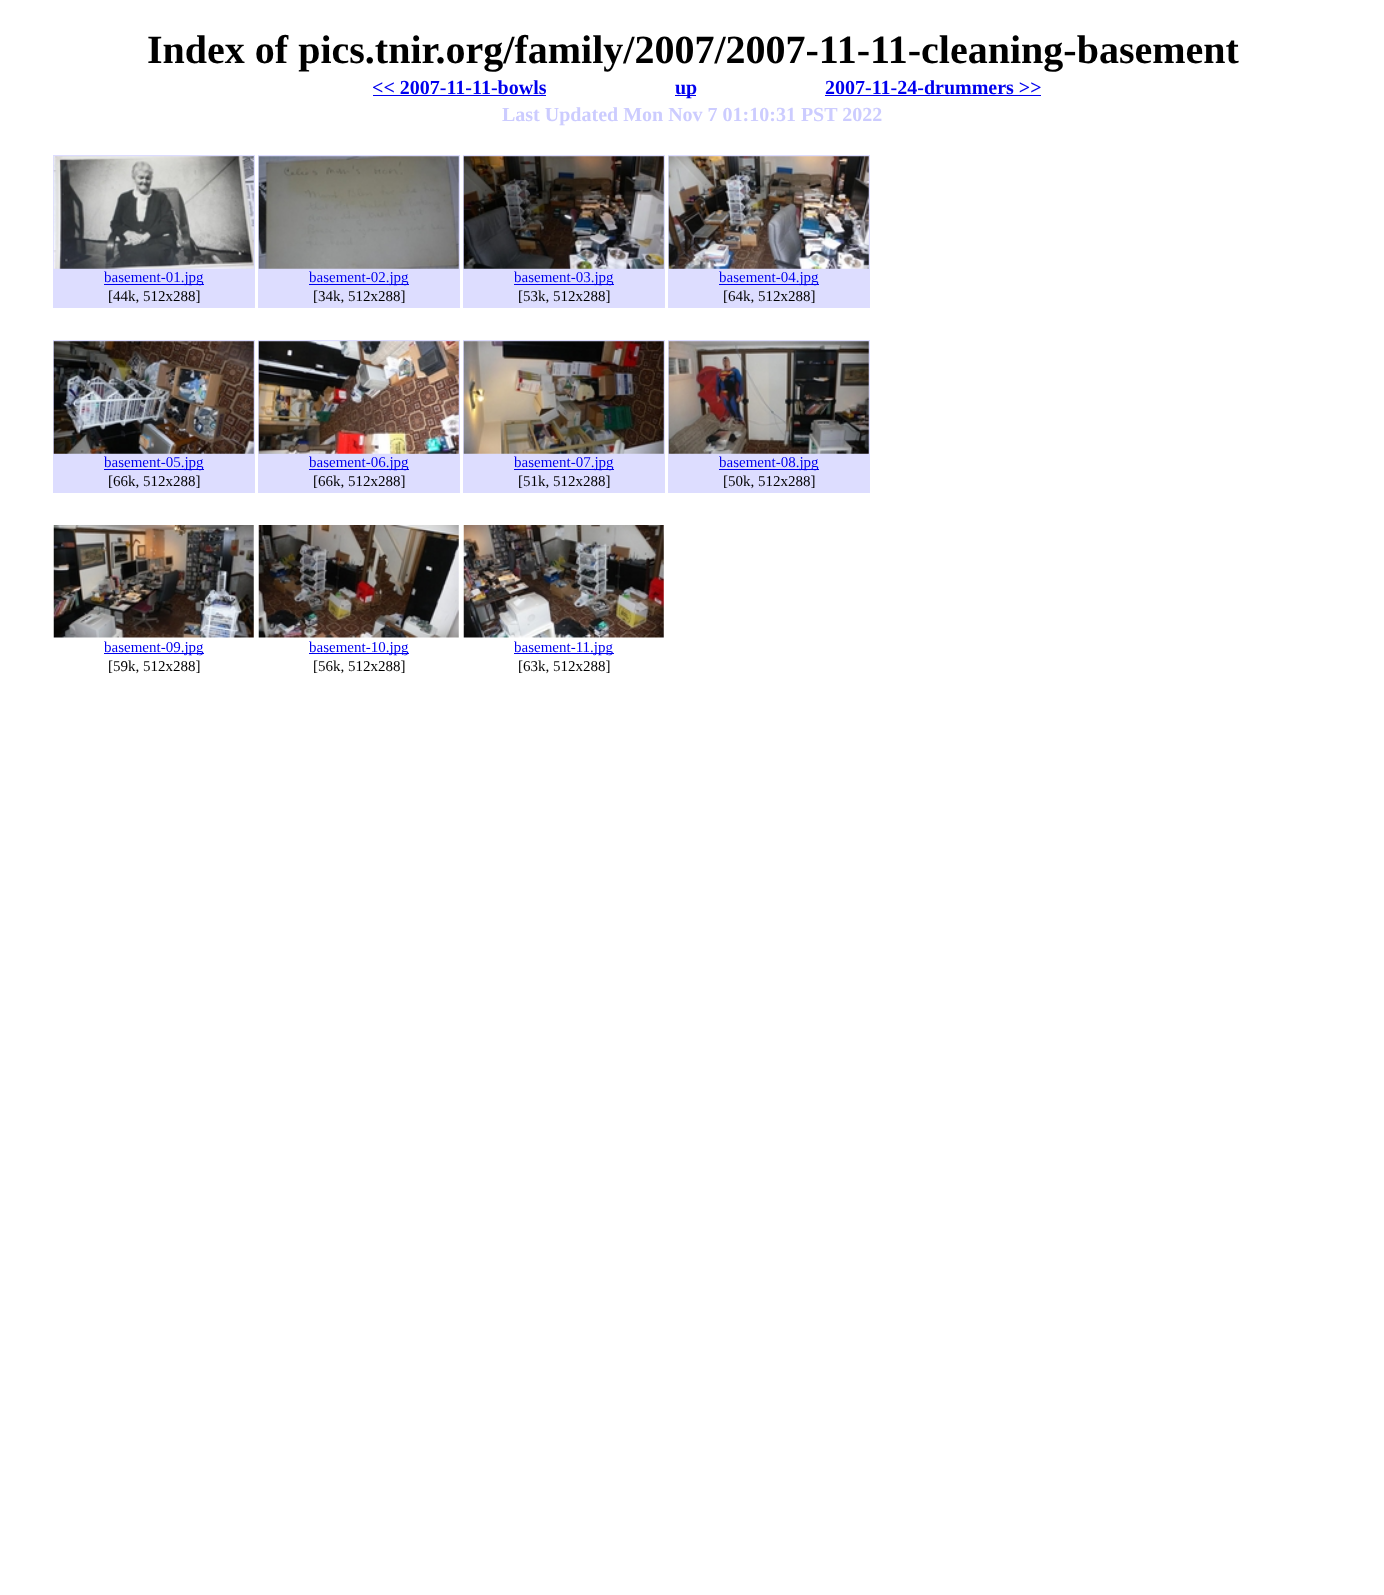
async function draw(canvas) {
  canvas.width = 1384
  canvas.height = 1595
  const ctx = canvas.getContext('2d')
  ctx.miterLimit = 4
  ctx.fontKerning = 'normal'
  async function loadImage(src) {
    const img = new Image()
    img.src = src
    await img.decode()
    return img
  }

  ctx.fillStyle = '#fff'
  ctx.fillRect(0, 0, 1384, 1595)
  ctx.font = 'bold 40px Liberation Serif'
  ctx.fillStyle = '#000'
  ctx.fillText('Index of pics.tnir.org/family/2007/2007-11-11-cleaning-basement', 147, 63)
  ctx.font = 'bold 20px Liberation Serif'
  ctx.fillStyle = '#00e'
  ctx.fillText('<< 2007-11-11-bowls', 372, 94)
  ctx.fillRect(373, 95, 173, 1)
  ctx.fillRect(675, 95, 21, 1)
  ctx.fillText('up', 675, 94)
  ctx.fillText('2007-11-24-drummers >>', 825, 94)
  ctx.fillRect(825, 95, 216, 1)
  ctx.fillStyle = '#ccf'
  ctx.fillText('Last Updated Mon Nov 7 01:10:31 PST 2022', 502, 121)
  ctx.fillStyle = '#ddf'
  ctx.fillRect(53, 155, 202, 153)
  ctx.drawImage(await loadImage('image0.png'), 53, 156, 201, 113)
  ctx.fillStyle = '#00e'
  ctx.fillRect(104, 284, 100, 1)
  ctx.font = '15px Liberation Serif'
  ctx.fillText('basement-01.jpg', 104, 282)
  ctx.fillStyle = '#000'
  ctx.fillText('[44k, 512x288]', 108, 301)
  ctx.fillStyle = '#ddf'
  ctx.fillRect(258, 155, 202, 153)
  ctx.drawImage(await loadImage('image1.png'), 258, 156, 201, 113)
  ctx.fillStyle = '#00e'
  ctx.fillRect(309, 284, 100, 1)
  ctx.fillText('basement-02.jpg', 309, 282)
  ctx.fillStyle = '#000'
  ctx.fillText('[34k, 512x288]', 313, 301)
  ctx.fillStyle = '#ddf'
  ctx.fillRect(463, 155, 202, 153)
  ctx.drawImage(await loadImage('image2.png'), 463, 156, 201, 113)
  ctx.fillStyle = '#00e'
  ctx.fillRect(514, 284, 100, 1)
  ctx.fillText('basement-03.jpg', 514, 282)
  ctx.fillStyle = '#000'
  ctx.fillText('[53k, 512x288]', 518, 301)
  ctx.fillStyle = '#ddf'
  ctx.fillRect(668, 155, 202, 153)
  ctx.drawImage(await loadImage('image3.png'), 668, 156, 201, 113)
  ctx.fillStyle = '#00e'
  ctx.fillRect(719, 284, 100, 1)
  ctx.fillText('basement-04.jpg', 719, 282)
  ctx.fillStyle = '#000'
  ctx.fillText('[64k, 512x288]', 723, 301)
  ctx.fillStyle = '#ddf'
  ctx.fillRect(53, 340, 202, 153)
  ctx.drawImage(await loadImage('image4.png'), 53, 341, 201, 113)
  ctx.fillStyle = '#00e'
  ctx.fillRect(104, 469, 100, 1)
  ctx.fillText('basement-05.jpg', 104, 467)
  ctx.fillStyle = '#000'
  ctx.fillText('[66k, 512x288]', 108, 486)
  ctx.fillStyle = '#ddf'
  ctx.fillRect(258, 340, 202, 153)
  ctx.drawImage(await loadImage('image5.png'), 258, 341, 201, 113)
  ctx.fillStyle = '#00e'
  ctx.fillRect(309, 469, 100, 1)
  ctx.fillText('basement-06.jpg', 309, 467)
  ctx.fillStyle = '#000'
  ctx.fillText('[66k, 512x288]', 313, 486)
  ctx.fillStyle = '#ddf'
  ctx.fillRect(463, 340, 202, 153)
  ctx.drawImage(await loadImage('image6.png'), 463, 341, 201, 113)
  ctx.fillStyle = '#00e'
  ctx.fillRect(514, 469, 100, 1)
  ctx.fillText('basement-07.jpg', 514, 467)
  ctx.fillStyle = '#000'
  ctx.fillText('[51k, 512x288]', 518, 486)
  ctx.fillStyle = '#ddf'
  ctx.fillRect(668, 340, 202, 153)
  ctx.drawImage(await loadImage('image7.png'), 668, 341, 201, 113)
  ctx.fillStyle = '#00e'
  ctx.fillRect(719, 469, 100, 1)
  ctx.fillText('basement-08.jpg', 719, 467)
  ctx.fillStyle = '#000'
  ctx.fillText('[50k, 512x288]', 723, 486)
  ctx.drawImage(await loadImage('image8.png'), 53, 525, 201, 113)
  ctx.fillStyle = '#00e'
  ctx.fillRect(104, 653, 100, 1)
  ctx.fillText('basement-09.jpg', 104, 652)
  ctx.fillStyle = '#000'
  ctx.fillText('[59k, 512x288]', 108, 671)
  ctx.drawImage(await loadImage('image9.png'), 258, 525, 201, 113)
  ctx.fillStyle = '#00e'
  ctx.fillRect(309, 653, 100, 1)
  ctx.fillText('basement-10.jpg', 309, 652)
  ctx.fillStyle = '#000'
  ctx.fillText('[56k, 512x288]', 313, 671)
  ctx.drawImage(await loadImage('image10.png'), 463, 525, 201, 113)
  ctx.fillStyle = '#00e'
  ctx.fillRect(514, 653, 100, 1)
  ctx.fillText('basement-11.jpg', 514, 652)
  ctx.fillStyle = '#000'
  ctx.fillText('[63k, 512x288]', 518, 671)
}

draw(document.querySelector('canvas'))
